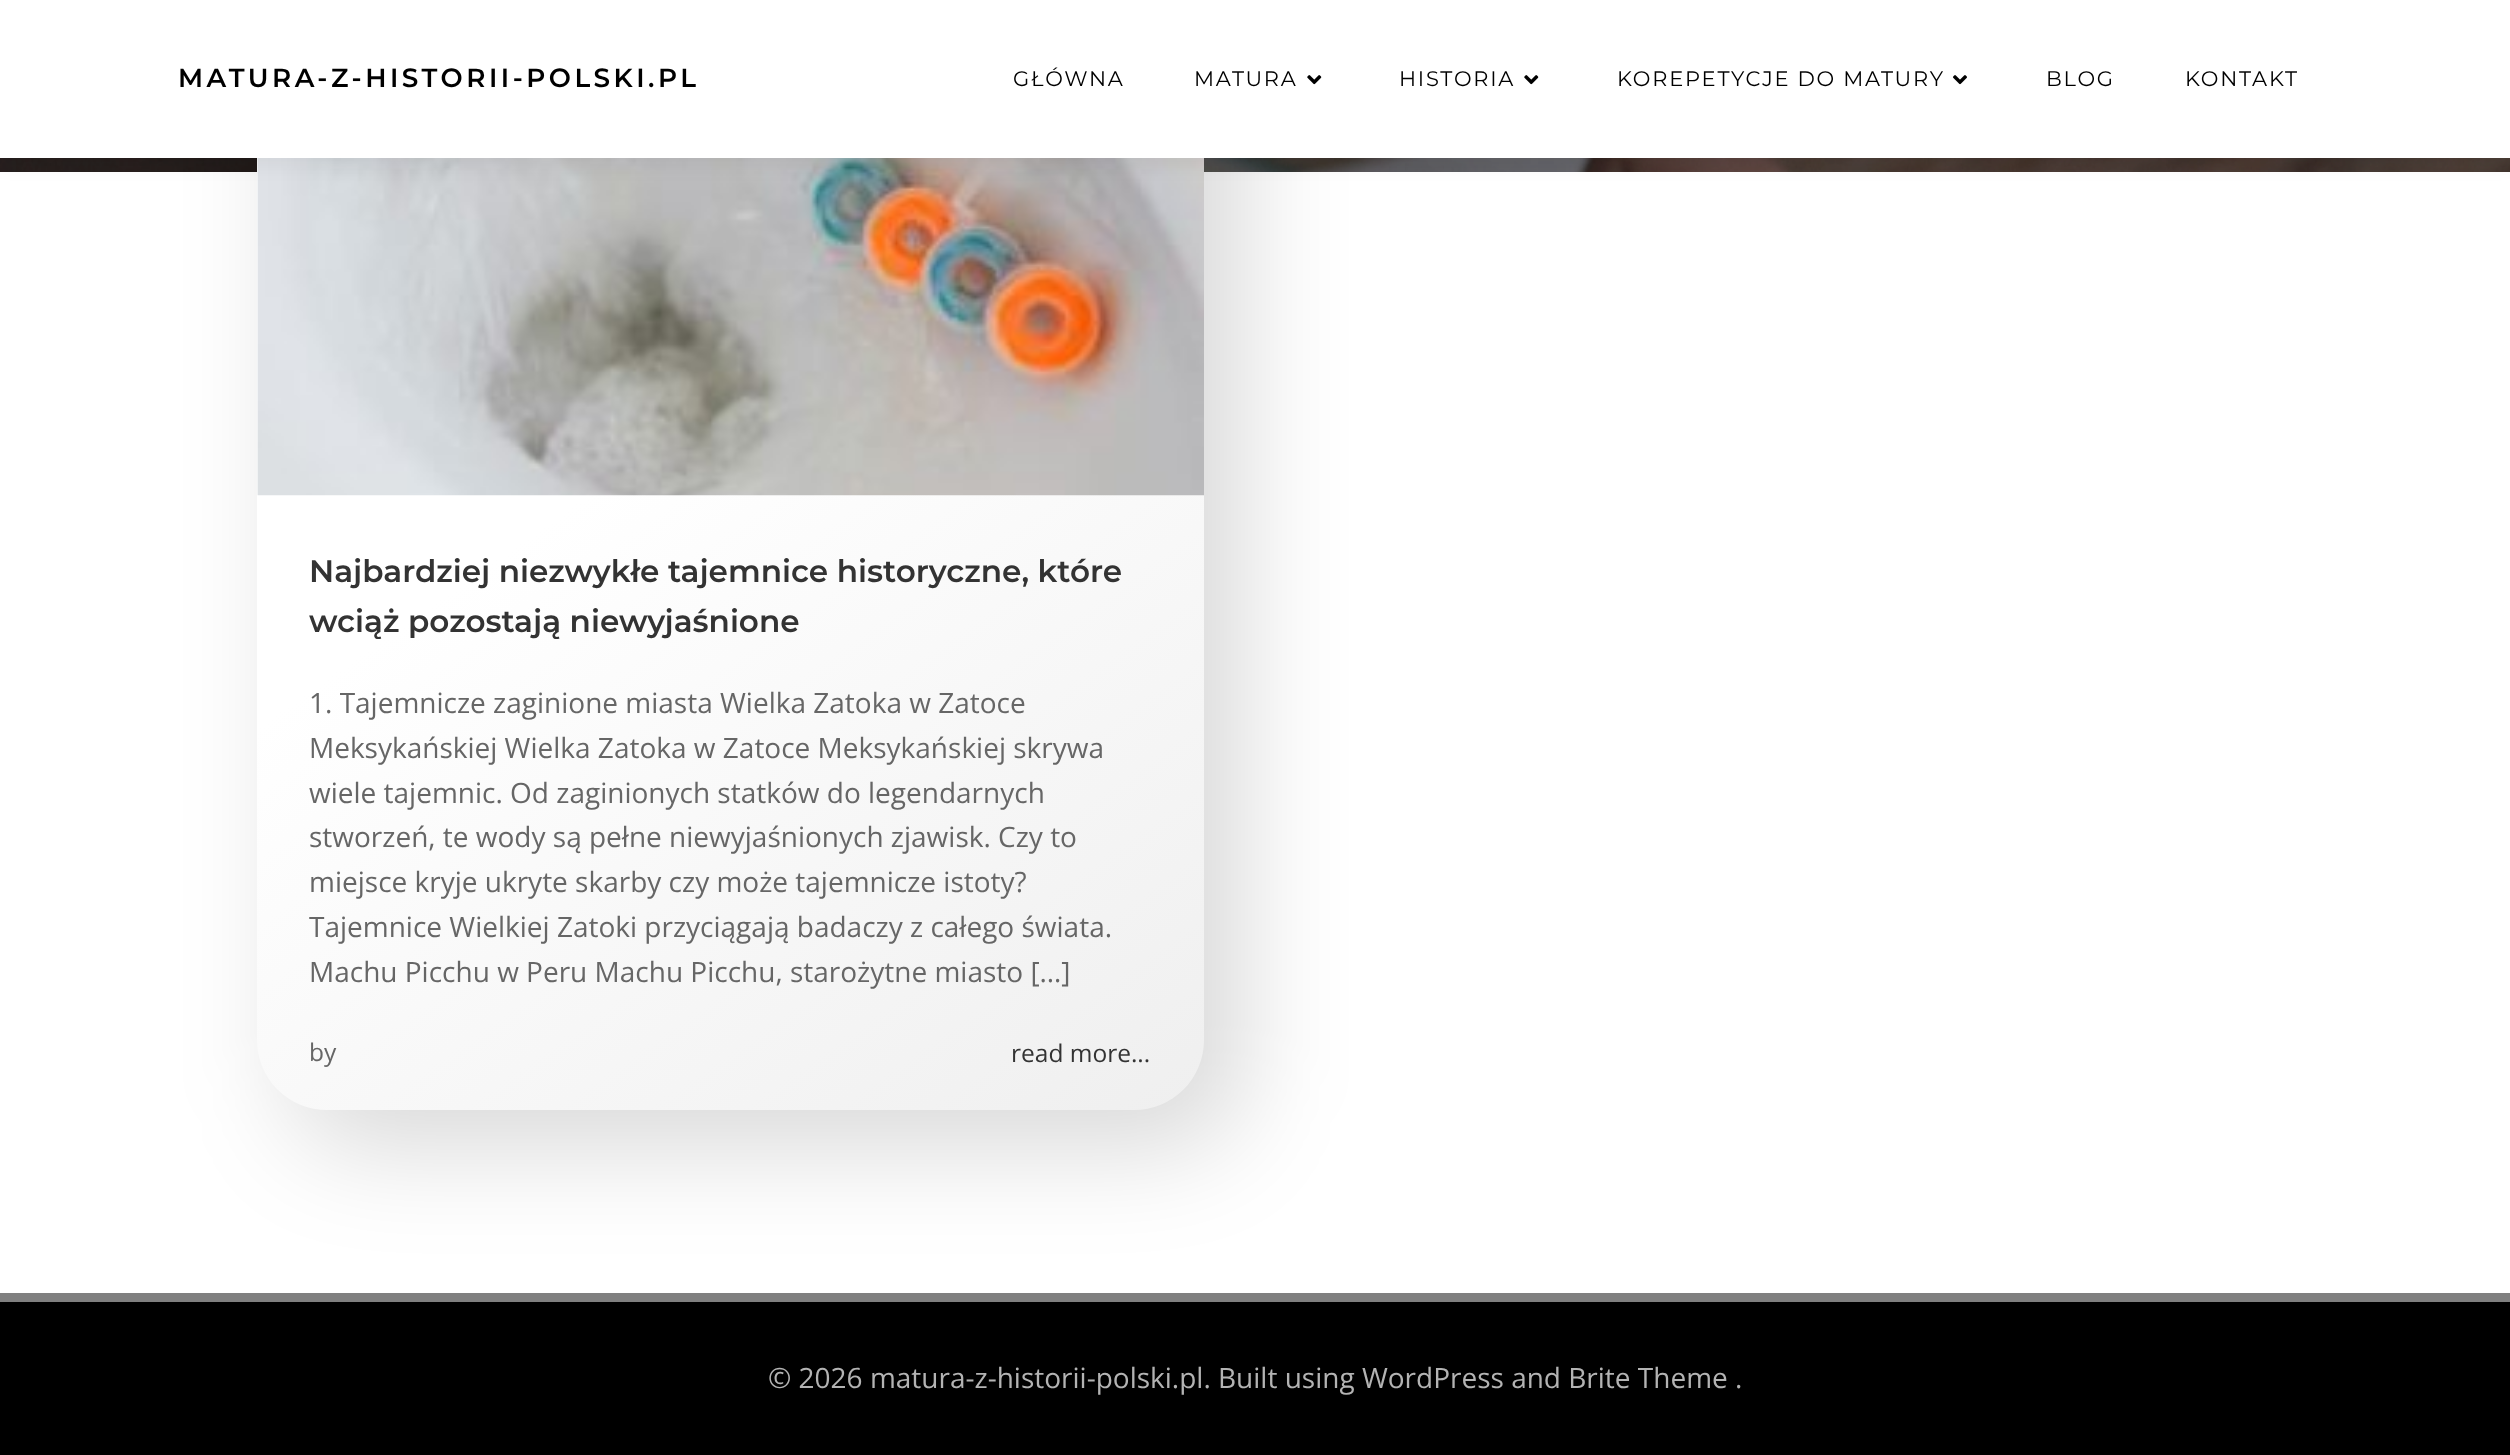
async function draw(canvas) {
  canvas.width = 2510
  canvas.height = 1455
  const ctx = canvas.getContext('2d')
  ctx.miterLimit = 4
  ctx.fontKerning = 'normal'
  async function loadImage(src) {
    const img = new Image()
    img.src = src
    await img.decode()
    return img
  }
  let gradient

  ctx.fillStyle = '#fff'
  ctx.fillRect(0, 0, 2510, 1455)
  ctx.drawImage(await loadImage('image2.png'), 0, 158, 2510, 14)
  ctx.fillStyle = '#000'
  ctx.fillRect(0, 1302, 2510, 153)
  ctx.fillStyle = '#808080'
  ctx.fillRect(0, 1293, 2510, 9)
  ctx.fillStyle = '#00000026'
  ctx.filter = 'blur(52.5px)'
  ctx.beginPath()
  ctx.roundRect(289, 2, 954, 1146, 74)
  ctx.fill()
  ctx.filter = 'none'
  gradient = ctx.createLinearGradient(307, -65, 1154, 1145)
  gradient.addColorStop(0.42, '#fff')
  gradient.addColorStop(1, '#efefef')
  ctx.fillStyle = gradient
  ctx.beginPath()
  ctx.roundRect(257, -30, 947, 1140, 70)
  ctx.fill()
  ctx.drawImage(await loadImage('image3.png'), 257, 158, 947, 338)
  ctx.fillStyle = '#0000000d'
  ctx.filter = 'blur(9px)'
  ctx.beginPath()
  ctx.rect(0, 9, 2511, 157)
  ctx.fill()
  ctx.filter = 'none'
  ctx.fillStyle = '#fff'
  ctx.fillRect(0, 0, 2510, 158)
  ctx.letterSpacing = '3.5px'
  ctx.font = '600 26.25px Montserrat'
  ctx.fillStyle = '#000'
  ctx.fillText('MATURA-Z-HISTORII-POLSKI.PL', 178, 87)
  ctx.letterSpacing = '1.75px'
  ctx.font = '21px Montserrat'
  ctx.fillText('GŁÓWNA', 1013, 86)
  ctx.fillText('MATURA', 1194, 86)
  ctx.drawImage(await loadImage('image0.png'), 1307, 75, 15, 10)
  ctx.fillText('HISTORIA', 1399, 86)
  ctx.drawImage(await loadImage('image0.png'), 1524, 75, 15, 10)
  ctx.fillText('KOREPETYCJE DO MATURY', 1617, 86)
  ctx.drawImage(await loadImage('image1.png'), 1953, 75, 14, 10)
  ctx.fillText('BLOG', 2046, 86)
  ctx.fillText('KONTAKT', 2185, 86)
  ctx.letterSpacing = '0px'
  ctx.font = '600 31.1px Montserrat'
  ctx.fillStyle = '#333'
  ctx.fillText('Najbardziej niezwykłe tajemnice historyczne, które', 309, 582)
  ctx.fillText('wciąż pozostają niewyjaśnione', 309, 632)
  ctx.font = '28px Open Sans'
  ctx.fillStyle = '#666'
  ctx.fillText('1. Tajemnicze zaginione miasta Wielka Zatoka w Zatoce', 309, 713)
  ctx.fillText('Meksykańskiej Wielka Zatoka w Zatoce Meksykańskiej skrywa', 309, 758)
  ctx.fillText('wiele tajemnic. Od zaginionych statków do legendarnych', 309, 803)
  ctx.fillText('stworzeń, te wody są pełne niewyjaśnionych zjawisk. Czy to', 309, 847)
  ctx.fillText('miejsce kryje ukryte skarby czy może tajemnicze istoty?', 309, 892)
  ctx.fillText('Tajemnice Wielkiej Zatoki przyciągają badaczy z całego świata.', 309, 937)
  ctx.fillText('Machu Picchu w Peru Machu Picchu, starożytne miasto […]', 309, 982)
  ctx.font = '24.5px Open Sans'
  ctx.fillText('by', 309, 1061)
  ctx.fillStyle = '#333'
  ctx.fillText('read more...', 1011, 1062)
  ctx.font = '28px Open Sans'
  ctx.fillStyle = '#b3b3b3'
  ctx.fillText('© 2026 matura-z-historii-polski.pl. Built using WordPress and Brite Theme .', 768, 1388)
}

draw(document.querySelector('canvas'))
